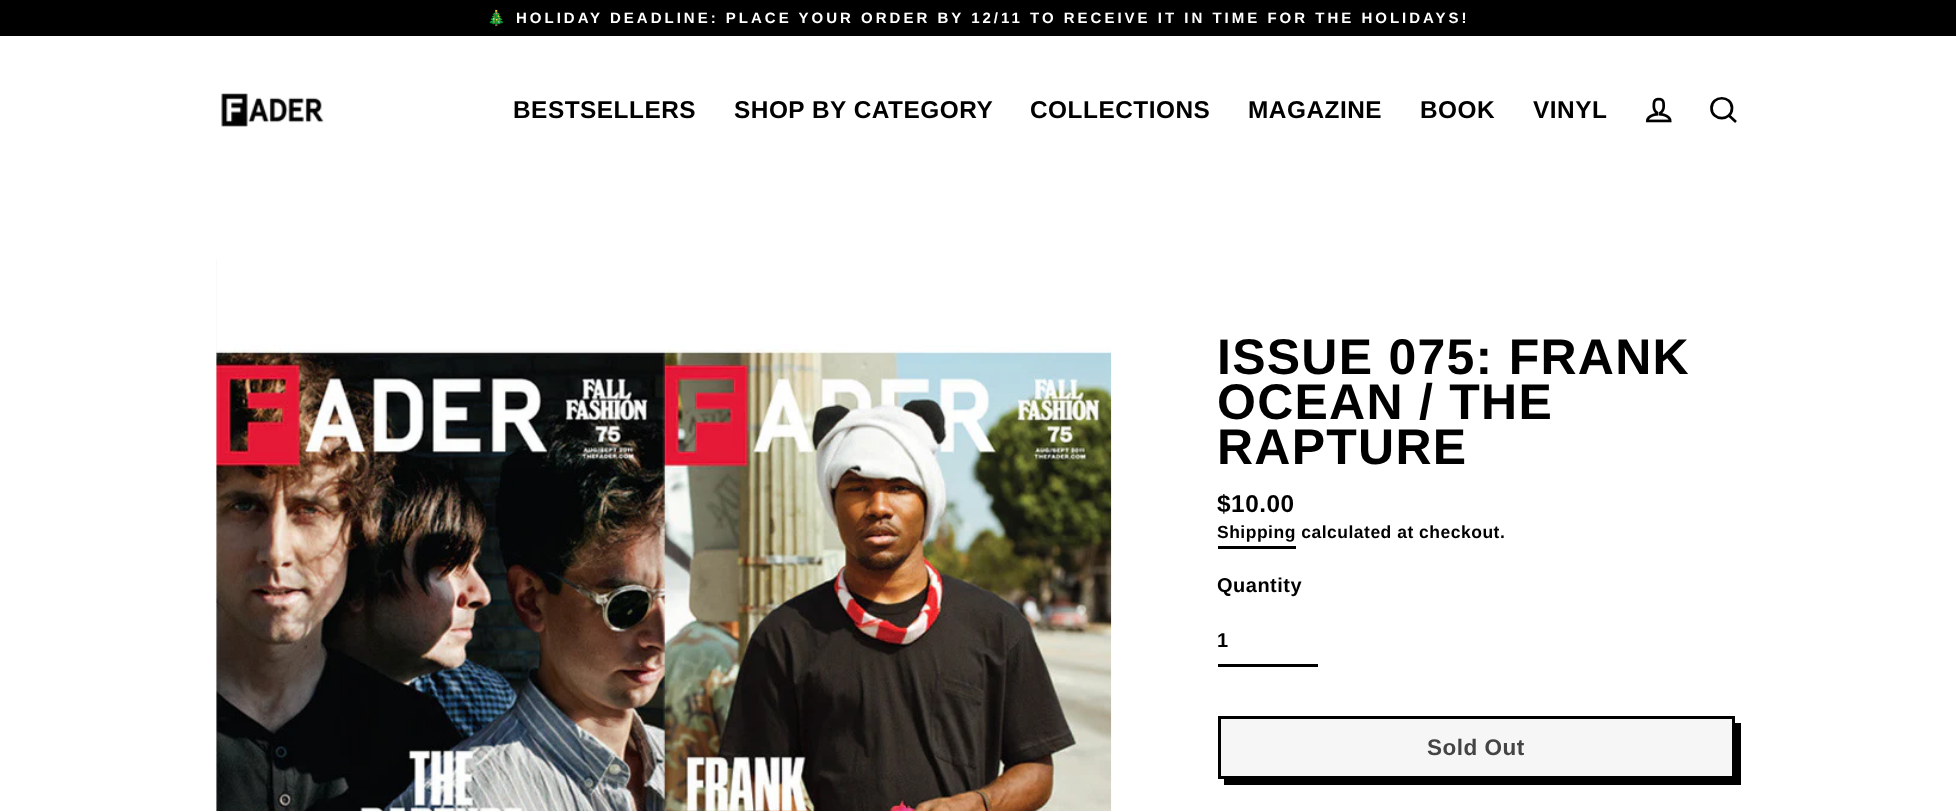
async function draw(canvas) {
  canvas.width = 1956
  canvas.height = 811
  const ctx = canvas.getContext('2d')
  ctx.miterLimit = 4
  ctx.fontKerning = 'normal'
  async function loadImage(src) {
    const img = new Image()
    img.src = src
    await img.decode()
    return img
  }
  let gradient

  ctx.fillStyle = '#fff'
  ctx.fillRect(0, 0, 1956, 811)
  ctx.fillStyle = '#000'
  ctx.fillRect(0, 0, 1956, 36)
  ctx.letterSpacing = '3px'
  ctx.font = 'bold 15px Noto Color Emoji'
  ctx.fillStyle = '#fff'
  ctx.fillText('🎄', 487, 23)
  ctx.font = 'bold 15px Arimo'
  ctx.fillText('HOLIDAY DEADLINE: PLACE YOUR ORDER BY 12/11 TO RECEIVE IT IN TIME FOR THE HOLIDAYS!', 516, 23)
  ctx.drawImage(await loadImage('image0.png'), 221, 93, 103, 34)
  ctx.letterSpacing = '0.5px'
  ctx.font = 'bold 24.4px Arimo'
  ctx.fillStyle = '#000'
  ctx.fillText('BESTSELLERS', 513, 118)
  ctx.fillText('SHOP BY CATEGORY', 734, 118)
  ctx.fillText('COLLECTIONS', 1030, 118)
  ctx.fillText('MAGAZINE', 1248, 118)
  ctx.fillText('BOOK', 1420, 118)
  ctx.fillText('VINYL', 1533, 118)
  ctx.drawImage(await loadImage('image1.png'), 1645, 97, 27, 26)
  ctx.beginPath()
  ctx.moveTo(1732, 108)
  ctx.bezierCurveTo(1732, 121.5, 1711.5, 121.5, 1711.5, 108)
  ctx.bezierCurveTo(1711.5, 95, 1732, 95, 1732, 108)
  ctx.closePath()
  ctx.moveTo(1736, 122)
  ctx.lineTo(1729, 115.5)
  ctx.strokeStyle = '#000'
  ctx.lineWidth = 2.7
  ctx.stroke()
  gradient = ctx.createLinearGradient(208, 305, 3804, 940)
  gradient.addColorStop(0.4, '#f2f2f2')
  gradient.addColorStop(0.63, '#eaeaea')
  gradient.addColorStop(0.79, '#f2f2f2')
  ctx.fillStyle = gradient
  ctx.fillRect(216, 259, 1, 552)
  ctx.drawImage(await loadImage('image2.png'), 216, 259, 896, 552)
  ctx.letterSpacing = '1.25px'
  ctx.font = 'bold 50px Arimo'
  ctx.fillStyle = '#000'
  ctx.fillText('ISSUE 075: FRANK', 1217, 374)
  ctx.fillText('OCEAN / THE', 1217, 419)
  ctx.fillText('RAPTURE', 1217, 464)
  ctx.letterSpacing = '0.5px'
  ctx.font = 'bold 24.4px Arimo'
  ctx.fillText('$10.00', 1217, 512)
  ctx.fillRect(1218, 546, 78, 3)
  ctx.font = 'bold 17.5px Arimo'
  ctx.fillText('Shipping calculated at checkout.', 1217, 538)
  ctx.font = 'bold 20px Arimo'
  ctx.fillText('Quantity', 1217, 592)
  ctx.fillRect(1218, 664, 100, 3)
  ctx.fillText('1', 1217, 647)
  ctx.beginPath()
  ctx.moveTo(1224, 779)
  ctx.lineTo(1224, 785)
  ctx.lineTo(1741, 785)
  ctx.lineTo(1741, 723)
  ctx.lineTo(1735, 723)
  ctx.lineTo(1735, 779)
  ctx.closePath()
  ctx.fill()
  ctx.fillStyle = '#f6f6f6'
  ctx.beginPath()
  ctx.rect(1219.5, 717.5, 514, 60)
  ctx.fill()
  ctx.lineWidth = 3
  ctx.stroke()
  ctx.font = 'bold 22.5px Arimo'
  ctx.fillStyle = '#444'
  ctx.fillText('Sold Out', 1427, 755)
}

draw(document.querySelector('canvas'))
